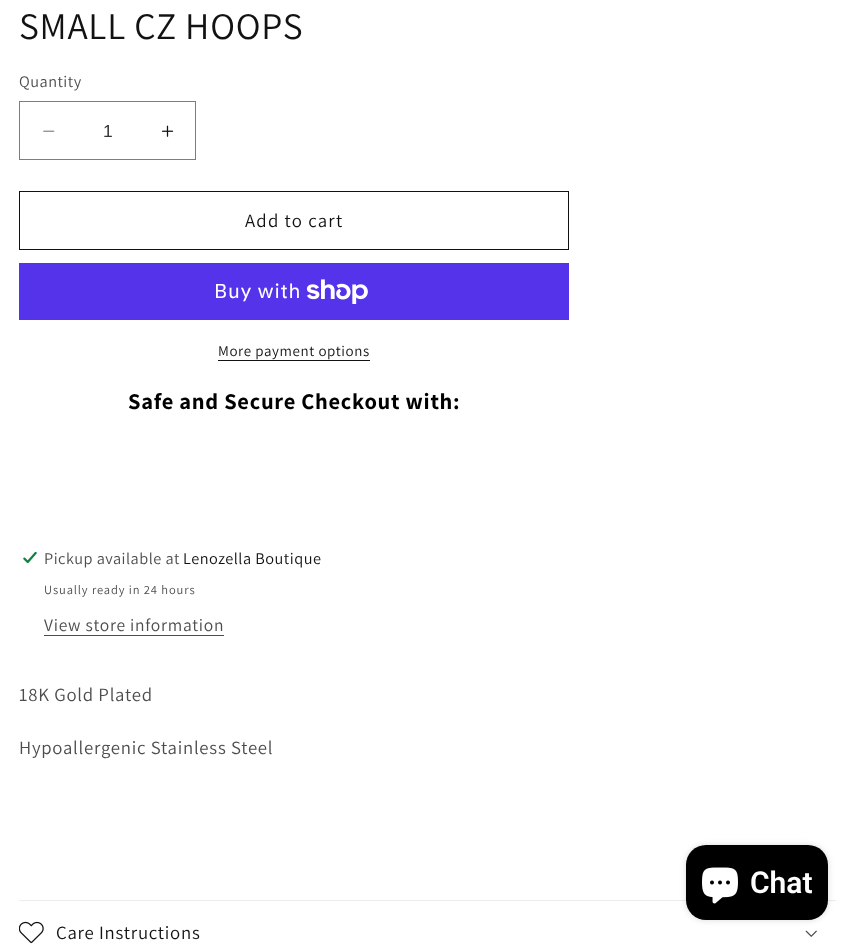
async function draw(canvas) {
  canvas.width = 854
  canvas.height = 946
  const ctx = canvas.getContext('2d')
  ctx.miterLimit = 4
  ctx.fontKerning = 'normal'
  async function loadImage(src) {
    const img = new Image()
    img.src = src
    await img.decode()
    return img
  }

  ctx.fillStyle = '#fff'
  ctx.fillRect(0, 0, 854, 946)
  ctx.letterSpacing = '0.75px'
  ctx.font = '37.5px Assistant'
  ctx.fillStyle = '#121212'
  ctx.fillText('SMALL CZ HOOPS', 19, 39)
  ctx.letterSpacing = '0.5px'
  ctx.font = '16.25px Assistant'
  ctx.fillStyle = '#4d4d4d'
  ctx.fillText('Quantity', 19, 87)
  ctx.drawImage(await loadImage('image0.png'), 43, 130, 12, 2)
  ctx.drawImage(await loadImage('image1.png'), 161, 125, 13, 12)
  ctx.strokeStyle = '#7d7d7d'
  ctx.strokeRect(19.5, 101.5, 176, 58)
  ctx.letterSpacing = '0px'
  ctx.font = '17.5px Liberation Sans'
  ctx.fillStyle = '#363636'
  ctx.fillText('1', 103, 137)
  ctx.strokeStyle = '#121212'
  ctx.strokeRect(19.5, 191.5, 549, 58)
  ctx.letterSpacing = '1.25px'
  ctx.font = '18.75px Assistant'
  ctx.fillStyle = '#121212'
  ctx.fillText('Add to cart', 245, 227)
  ctx.fillStyle = '#5433eb'
  ctx.fillRect(19, 263, 550, 57)
  ctx.letterSpacing = '0.75px'
  ctx.font = '20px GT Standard'
  ctx.fillStyle = '#fff'
  ctx.fillText('Buy with', 214, 298)
  ctx.drawImage(await loadImage('image2.png'), 306, 279, 62, 25)
  ctx.letterSpacing = '0.6px'
  ctx.font = '15px Assistant'
  ctx.fillStyle = '#121212'
  ctx.fillText('More payment options', 218, 356)
  ctx.fillRect(218, 360, 152, 1)
  ctx.letterSpacing = '0.75px'
  ctx.font = 'bold 22.5px Assistant'
  ctx.fillStyle = '#000'
  ctx.fillText('Safe and Secure Checkout with:', 128, 409)
  ctx.drawImage(await loadImage('image3.png'), 22, 551, 16, 13)
  ctx.letterSpacing = '0.5px'
  ctx.font = '16.25px Assistant'
  ctx.fillStyle = '#4d4d4d'
  ctx.fillText('Pickup available at', 44, 564)
  ctx.fillStyle = '#121212'
  ctx.fillText('Lenozella Boutique', 183, 564)
  ctx.letterSpacing = '0.9px'
  ctx.font = '12.5px Assistant'
  ctx.fillStyle = '#4d4d4d'
  ctx.fillText('Usually ready in 24 hours', 44, 594)
  ctx.letterSpacing = '0.75px'
  ctx.font = '17.5px Assistant'
  ctx.fillText('View store information', 44, 631)
  ctx.fillRect(44, 635, 180, 1)
  ctx.font = '18.75px Assistant'
  ctx.fillText('18K Gold Plated', 19, 701)
  ctx.fillText('Hypoallergenic Stainless Steel', 19, 754)
  ctx.fillStyle = '#ececec'
  ctx.fillRect(19, 900, 817, 1)
  ctx.drawImage(await loadImage('image4.png'), 19, 921, 25, 23)
  ctx.fillStyle = '#121212'
  ctx.fillText('Care Instructions', 56, 939)
  ctx.drawImage(await loadImage('image5.png'), 805, 930, 12, 7)
  ctx.fillStyle = '#00000026'
  ctx.filter = 'blur(3px)'
  ctx.beginPath()
  ctx.roundRect(686, 845, 142, 75, 20)
  ctx.fill()
  ctx.filter = 'none'
  ctx.fillStyle = '#000'
  ctx.beginPath()
  ctx.roundRect(686, 845, 142, 75, 20)
  ctx.fill()
  ctx.drawImage(await loadImage('image6.png'), 702, 867, 36, 37)
  ctx.letterSpacing = '0px'
  ctx.font = '600 30px Roboto'
  ctx.fillStyle = '#fff'
  ctx.fillText('Chat', 750, 893)
}

draw(document.querySelector('canvas'))
